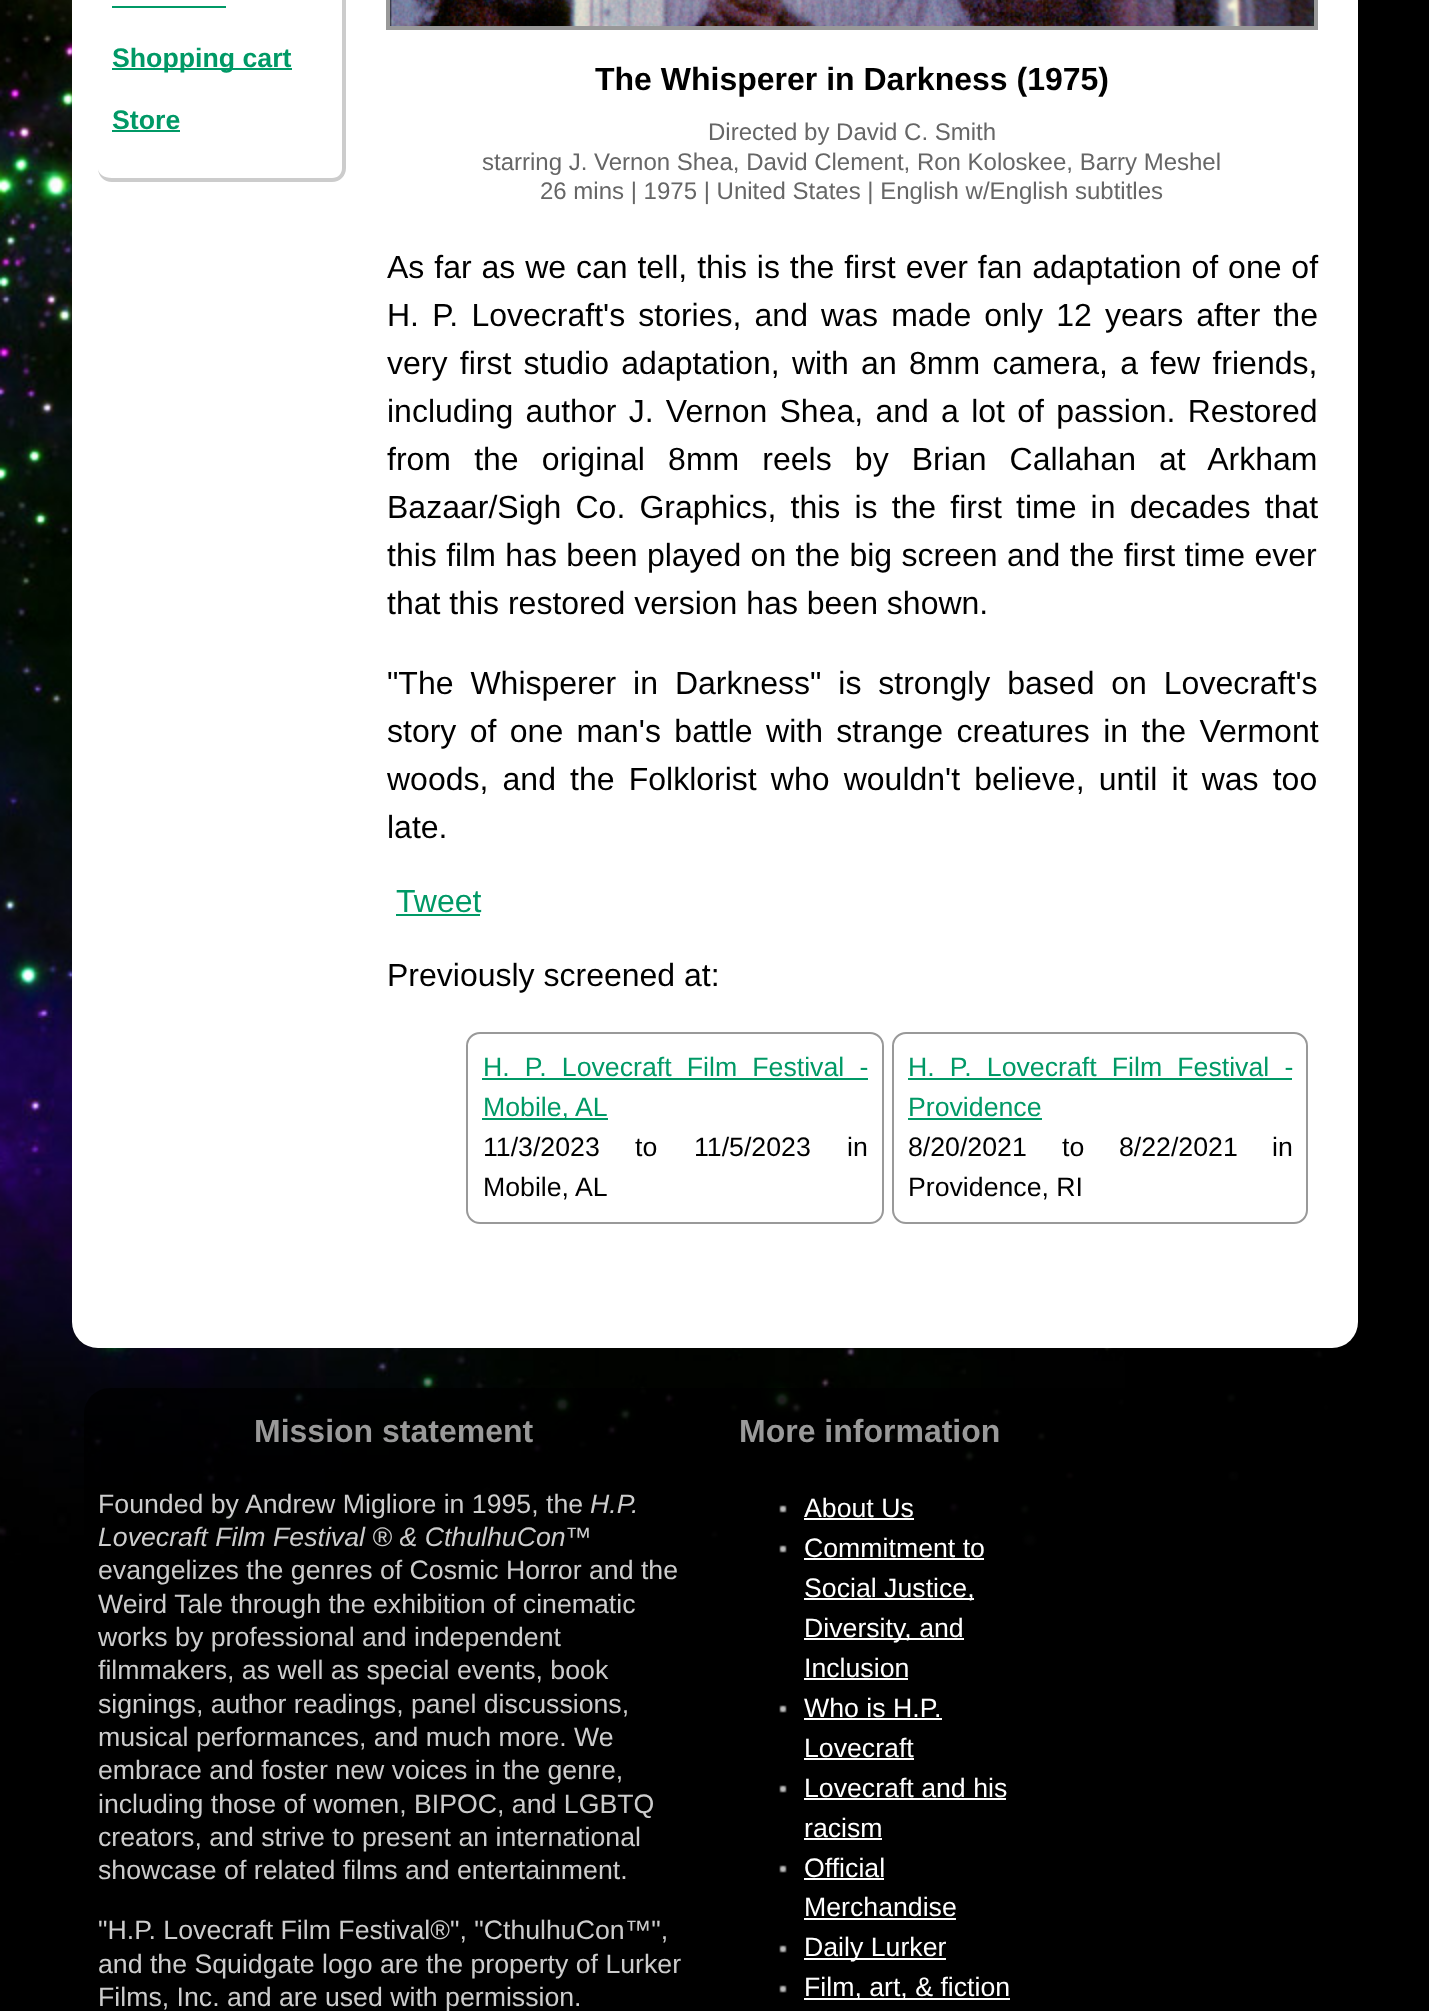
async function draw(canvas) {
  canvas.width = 1429
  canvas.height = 2011
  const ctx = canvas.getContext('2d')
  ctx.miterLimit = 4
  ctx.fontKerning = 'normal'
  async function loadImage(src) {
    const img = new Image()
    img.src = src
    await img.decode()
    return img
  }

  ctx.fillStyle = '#000'
  ctx.fillRect(0, 0, 1429, 2011)
  ctx.drawImage(await loadImage('image0.png'), 0, 0, 1345, 1563)
  ctx.fillStyle = '#fff'
  ctx.beginPath()
  ctx.roundRect(72, -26, 1286, 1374, 26)
  ctx.fill()
  ctx.fillStyle = '#ccc'
  ctx.beginPath()
  ctx.moveTo(112, -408)
  ctx.lineTo(332, -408)
  ctx.bezierCurveTo(340, -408, 346, -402, 346, -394)
  ctx.lineTo(346, 168)
  ctx.bezierCurveTo(346, 176, 340, 182, 332, 182)
  ctx.lineTo(112, 182)
  ctx.bezierCurveTo(104, 182, 98, 176, 98, 168)
  ctx.lineTo(98, -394)
  ctx.bezierCurveTo(98, -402, 104, -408, 112, -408)
  ctx.closePath()
  ctx.moveTo(112, -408)
  ctx.lineTo(332, -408)
  ctx.bezierCurveTo(338, -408, 342, -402, 342, -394)
  ctx.lineTo(342, 168)
  ctx.bezierCurveTo(342, 174, 338, 178, 332, 178)
  ctx.lineTo(112, 178)
  ctx.bezierCurveTo(104, 178, 98, 174, 98, 168)
  ctx.lineTo(98, -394)
  ctx.bezierCurveTo(98, -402, 104, -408, 112, -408)
  ctx.closePath()
  ctx.fill('evenodd')
  ctx.fillStyle = '#096'
  ctx.fillRect(112, 6, 114, 2)
  ctx.fillRect(112, 68, 180, 2)
  ctx.font = 'bold 26.7px Liberation Sans'
  ctx.fillText('Shopping cart', 112, 67)
  ctx.fillText('Store', 112, 129)
  ctx.fillRect(112, 130, 68, 2)
  ctx.strokeStyle = '#999'
  ctx.lineWidth = 4
  ctx.strokeRect(388, -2, 928, 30)
  ctx.drawImage(await loadImage('image1.png'), 390, 0, 924, 26)
  ctx.font = 'bold 32px Liberation Sans'
  ctx.fillStyle = '#000'
  ctx.fillText('The Whisperer in Darkness (1975)', 595, 90)
  ctx.font = '24px Liberation Sans'
  ctx.fillStyle = '#666'
  ctx.fillText('Directed by David C. Smith', 708, 140)
  ctx.fillText('starring J. Vernon Shea, David Clement, Ron Koloskee, Barry Meshel', 482, 170)
  ctx.fillText('26 mins | 1975 | United States | English w/English subtitles', 540, 199)
  ctx.wordSpacing = '1px'
  ctx.font = '32px Liberation Sans'
  ctx.fillStyle = '#000'
  ctx.fillText('As far as we can tell, this is the first ever fan adaptation of one of', 387, 278)
  ctx.wordSpacing = '4.25px'
  ctx.fillText('H. P. Lovecraft\'s stories, and was made only 12 years after the', 387, 326)
  ctx.wordSpacing = '3.4px'
  ctx.fillText('very first studio adaptation, with an 8mm camera, a few friends,', 387, 374)
  ctx.fillText('including author J. Vernon Shea, and a lot of passion. Restored', 387, 422)
  ctx.wordSpacing = '14.25px'
  ctx.fillText('from the original 8mm reels by Brian Callahan at Arkham', 387, 470)
  ctx.wordSpacing = '5.25px'
  ctx.fillText('Bazaar/Sigh Co. Graphics, this is the first time in decades that', 387, 518)
  ctx.wordSpacing = '0.5px'
  ctx.fillText('this film has been played on the big screen and the first time ever', 387, 566)
  ctx.wordSpacing = '0px'
  ctx.fillText('that this restored version has been shown.', 387, 614)
  ctx.wordSpacing = '8px'
  ctx.fillText('"The Whisperer in Darkness" is strongly based on Lovecraft\'s', 387, 694)
  ctx.wordSpacing = '4.5px'
  ctx.fillText('story of one man\'s battle with strange creatures in the Vermont', 387, 742)
  ctx.wordSpacing = '5.25px'
  ctx.fillText('woods, and the Folklorist who wouldn\'t believe, until it was too', 387, 790)
  ctx.wordSpacing = '0px'
  ctx.fillText('late.', 387, 838)
  ctx.fillStyle = '#096'
  ctx.fillText('Tweet', 396, 912)
  ctx.fillRect(396, 914, 84, 2)
  ctx.fillStyle = '#000'
  ctx.fillText('Previously screened at:', 387, 986)
  ctx.beginPath()
  ctx.roundRect(467, 1033, 416, 190, 13)
  ctx.lineWidth = 2
  ctx.stroke()
  ctx.wordSpacing = '7.75px'
  ctx.font = '26.7px Liberation Sans'
  ctx.fillStyle = '#096'
  ctx.fillText('H. P. Lovecraft Film Festival -', 483, 1076)
  ctx.fillRect(482, 1078, 386, 2)
  ctx.fillRect(482, 1118, 126, 2)
  ctx.wordSpacing = '0px'
  ctx.fillText('Mobile, AL', 483, 1116)
  ctx.fillStyle = '#000'
  ctx.fillText('11/3/2023', 483, 1156)
  ctx.fillText('to', 635, 1156)
  ctx.fillText('11/5/2023', 694, 1156)
  ctx.fillText('in', 847, 1156)
  ctx.fillText('Mobile, AL', 483, 1196)
  ctx.beginPath()
  ctx.roundRect(893, 1033, 414, 190, 13)
  ctx.stroke()
  ctx.wordSpacing = '7.75px'
  ctx.fillStyle = '#096'
  ctx.fillText('H. P. Lovecraft Film Festival -', 908, 1076)
  ctx.fillRect(908, 1078, 384, 2)
  ctx.wordSpacing = '0px'
  ctx.fillText('Providence', 908, 1116)
  ctx.fillRect(908, 1118, 134, 2)
  ctx.fillStyle = '#000'
  ctx.fillText('8/20/2021', 908, 1156)
  ctx.fillText('to', 1062, 1156)
  ctx.fillText('8/22/2021', 1119, 1156)
  ctx.fillText('in', 1272, 1156)
  ctx.fillText('Providence, RI', 908, 1196)
  ctx.fillStyle = '#000000b3'
  ctx.beginPath()
  ctx.roundRect(84, 1388, 1262, 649, 26)
  ctx.fill()
  ctx.font = 'bold 32px Liberation Sans'
  ctx.fillStyle = '#999'
  ctx.fillText('Mission statement', 254, 1442)
  ctx.font = '26.7px Liberation Sans'
  ctx.fillStyle = '#ccc'
  ctx.fillText('Founded by Andrew Migliore in 1995, the', 98, 1513)
  ctx.font = 'italic 26.7px Liberation Sans'
  ctx.fillText('H.P.', 590, 1513)
  ctx.fillText('Lovecraft Film Festival ® & CthulhuCon', 98, 1546)
  ctx.font = '26.7px Liberation Sans'
  ctx.fillText('™', 565, 1546)
  ctx.fillText('evangelizes the genres of Cosmic Horror and the', 98, 1579)
  ctx.fillText('Weird Tale through the exhibition of cinematic', 98, 1613)
  ctx.fillText('works by professional and independent', 98, 1646)
  ctx.fillText('filmmakers, as well as special events, book', 98, 1679)
  ctx.fillText('signings, author readings, panel discussions,', 98, 1713)
  ctx.fillText('musical performances, and much more. We', 98, 1746)
  ctx.fillText('embrace and foster new voices in the genre,', 98, 1779)
  ctx.fillText('including those of women, BIPOC, and LGBTQ', 98, 1813)
  ctx.fillText('creators, and strive to present an international', 98, 1846)
  ctx.fillText('showcase of related films and entertainment.', 98, 1879)
  ctx.fillText('"H.P. Lovecraft Film Festival®", "CthulhuCon™",', 98, 1939)
  ctx.fillText('and the Squidgate logo are the property of Lurker', 98, 1973)
  ctx.fillText('Films, Inc. and are used with permission.', 98, 2006)
  ctx.font = 'bold 32px Liberation Sans'
  ctx.fillStyle = '#999'
  ctx.fillText('More information', 739, 1442)
  ctx.drawImage(await loadImage('image2.png'), 779, 1505, 8, 8)
  ctx.font = '26.7px Liberation Sans'
  ctx.fillStyle = '#fff'
  ctx.fillText('About Us', 804, 1517)
  ctx.fillRect(804, 1518, 110, 2)
  ctx.drawImage(await loadImage('image2.png'), 779, 1545, 8, 8)
  ctx.fillText('Commitment to', 804, 1557)
  ctx.fillRect(804, 1558, 180, 2)
  ctx.fillRect(804, 1598, 170, 2)
  ctx.fillText('Social Justice,', 804, 1597)
  ctx.fillRect(804, 1638, 160, 2)
  ctx.fillText('Diversity, and', 804, 1637)
  ctx.fillText('Inclusion', 804, 1677)
  ctx.fillRect(804, 1678, 104, 2)
  ctx.drawImage(await loadImage('image2.png'), 779, 1705, 8, 8)
  ctx.fillText('Who is H.P.', 804, 1717)
  ctx.fillRect(804, 1718, 138, 2)
  ctx.fillText('Lovecraft', 804, 1757)
  ctx.fillRect(804, 1758, 110, 2)
  ctx.drawImage(await loadImage('image2.png'), 779, 1785, 8, 8)
  ctx.fillText('Lovecraft and his', 804, 1797)
  ctx.fillRect(804, 1798, 202, 2)
  ctx.fillText('racism', 804, 1837)
  ctx.fillRect(804, 1838, 78, 2)
  ctx.drawImage(await loadImage('image2.png'), 779, 1865, 8, 8)
  ctx.fillText('Official', 804, 1877)
  ctx.fillRect(804, 1878, 80, 2)
  ctx.fillText('Merchandise', 804, 1916)
  ctx.fillRect(804, 1918, 152, 2)
  ctx.drawImage(await loadImage('image2.png'), 779, 1945, 8, 8)
  ctx.fillRect(804, 1958, 142, 2)
  ctx.fillText('Daily Lurker', 804, 1956)
  ctx.drawImage(await loadImage('image2.png'), 779, 1985, 8, 8)
  ctx.fillRect(804, 1998, 206, 2)
  ctx.fillText('Film, art, & fiction', 804, 1996)
}

draw(document.querySelector('canvas'))
